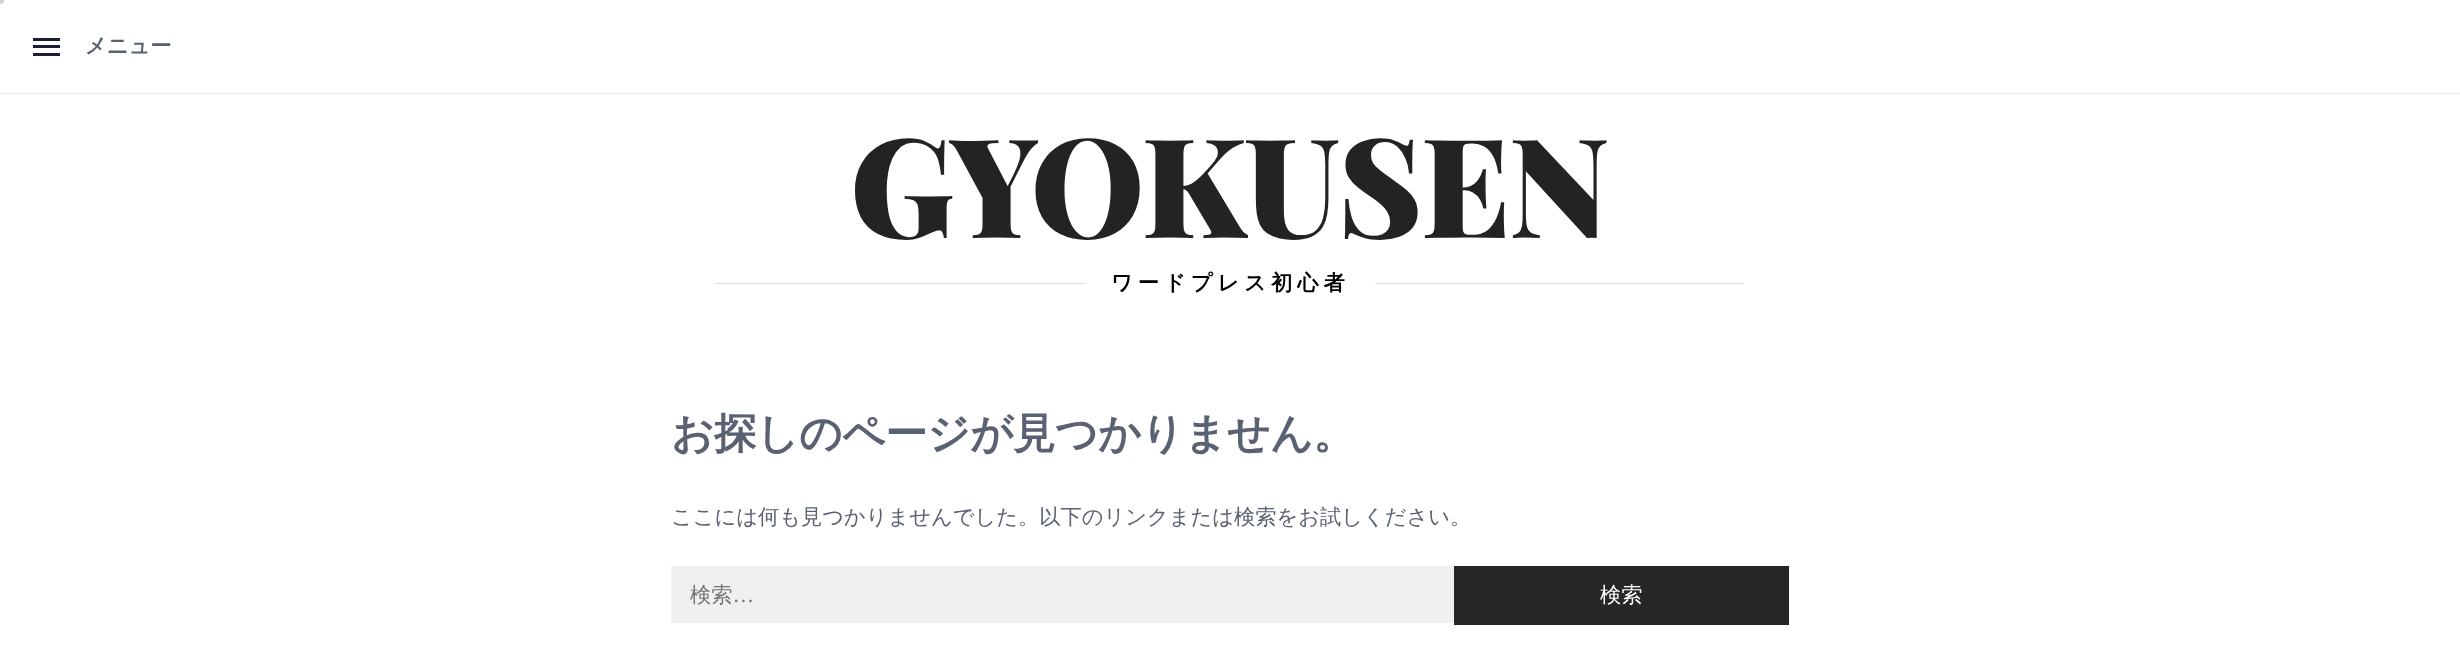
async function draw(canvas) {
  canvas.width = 2460
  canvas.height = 664
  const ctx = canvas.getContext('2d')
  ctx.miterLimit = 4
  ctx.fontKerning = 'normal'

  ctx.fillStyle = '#fff'
  ctx.fillRect(0, 0, 2460, 664)
  ctx.fillStyle = '#ced0d4'
  ctx.beginPath()
  ctx.arc(0, 0, 4, 0, 2 * Math.PI)
  ctx.fill()
  ctx.fillStyle = '#eaeaea'
  ctx.fillRect(0, 93, 2460, 1)
  ctx.fillStyle = '#152035'
  ctx.fillRect(33, 45, 27, 3)
  ctx.fillRect(33, 38, 27, 3)
  ctx.fillRect(33, 53, 27, 3)
  ctx.font = 'bold 21.25px WenQuanYi Zen Hei'
  ctx.fillStyle = '#596172'
  ctx.fillText('メニュー', 85, 53)
  ctx.letterSpacing = '-1.75px'
  ctx.font = '900 138px Playfair Display'
  ctx.fillStyle = '#232323'
  ctx.fillText('GYOKUSEN', 850, 238)
  ctx.fillStyle = '#dcdcdc'
  ctx.fillRect(716, 283, 1028, 1)
  ctx.fillStyle = '#fff'
  ctx.fillRect(1086, 283, 289, 1)
  ctx.letterSpacing = '5px'
  ctx.font = 'bold 21.25px WenQuanYi Zen Hei'
  ctx.fillStyle = '#000'
  ctx.fillText('ワードプレス初心者', 1111, 290)
  ctx.letterSpacing = '-0.5px'
  ctx.font = 'bold 42.5px WenQuanYi Zen Hei'
  ctx.fillStyle = '#596172'
  ctx.fillText('お探しのページが見つかりません。', 671, 448)
  ctx.letterSpacing = '0px'
  ctx.font = '500 21.25px WenQuanYi Zen Hei'
  ctx.fillText('ここには何も見つかりませんでした。以下のリンクまたは検索をお試しください。', 671, 524)
  ctx.fillStyle = '#f0f0f0'
  ctx.fillRect(671, 566, 783, 57)
  ctx.fillStyle = '#757575'
  ctx.fillText('検索', 690, 602)
  ctx.font = '21.25px Source Sans Pro'
  ctx.fillText('…', 733, 602)
  ctx.fillStyle = '#262626'
  ctx.fillRect(1454, 566, 335, 59)
  ctx.font = '500 21.25px WenQuanYi Zen Hei'
  ctx.fillStyle = '#fff'
  ctx.fillText('検索', 1600, 602)
}

draw(document.querySelector('canvas'))
